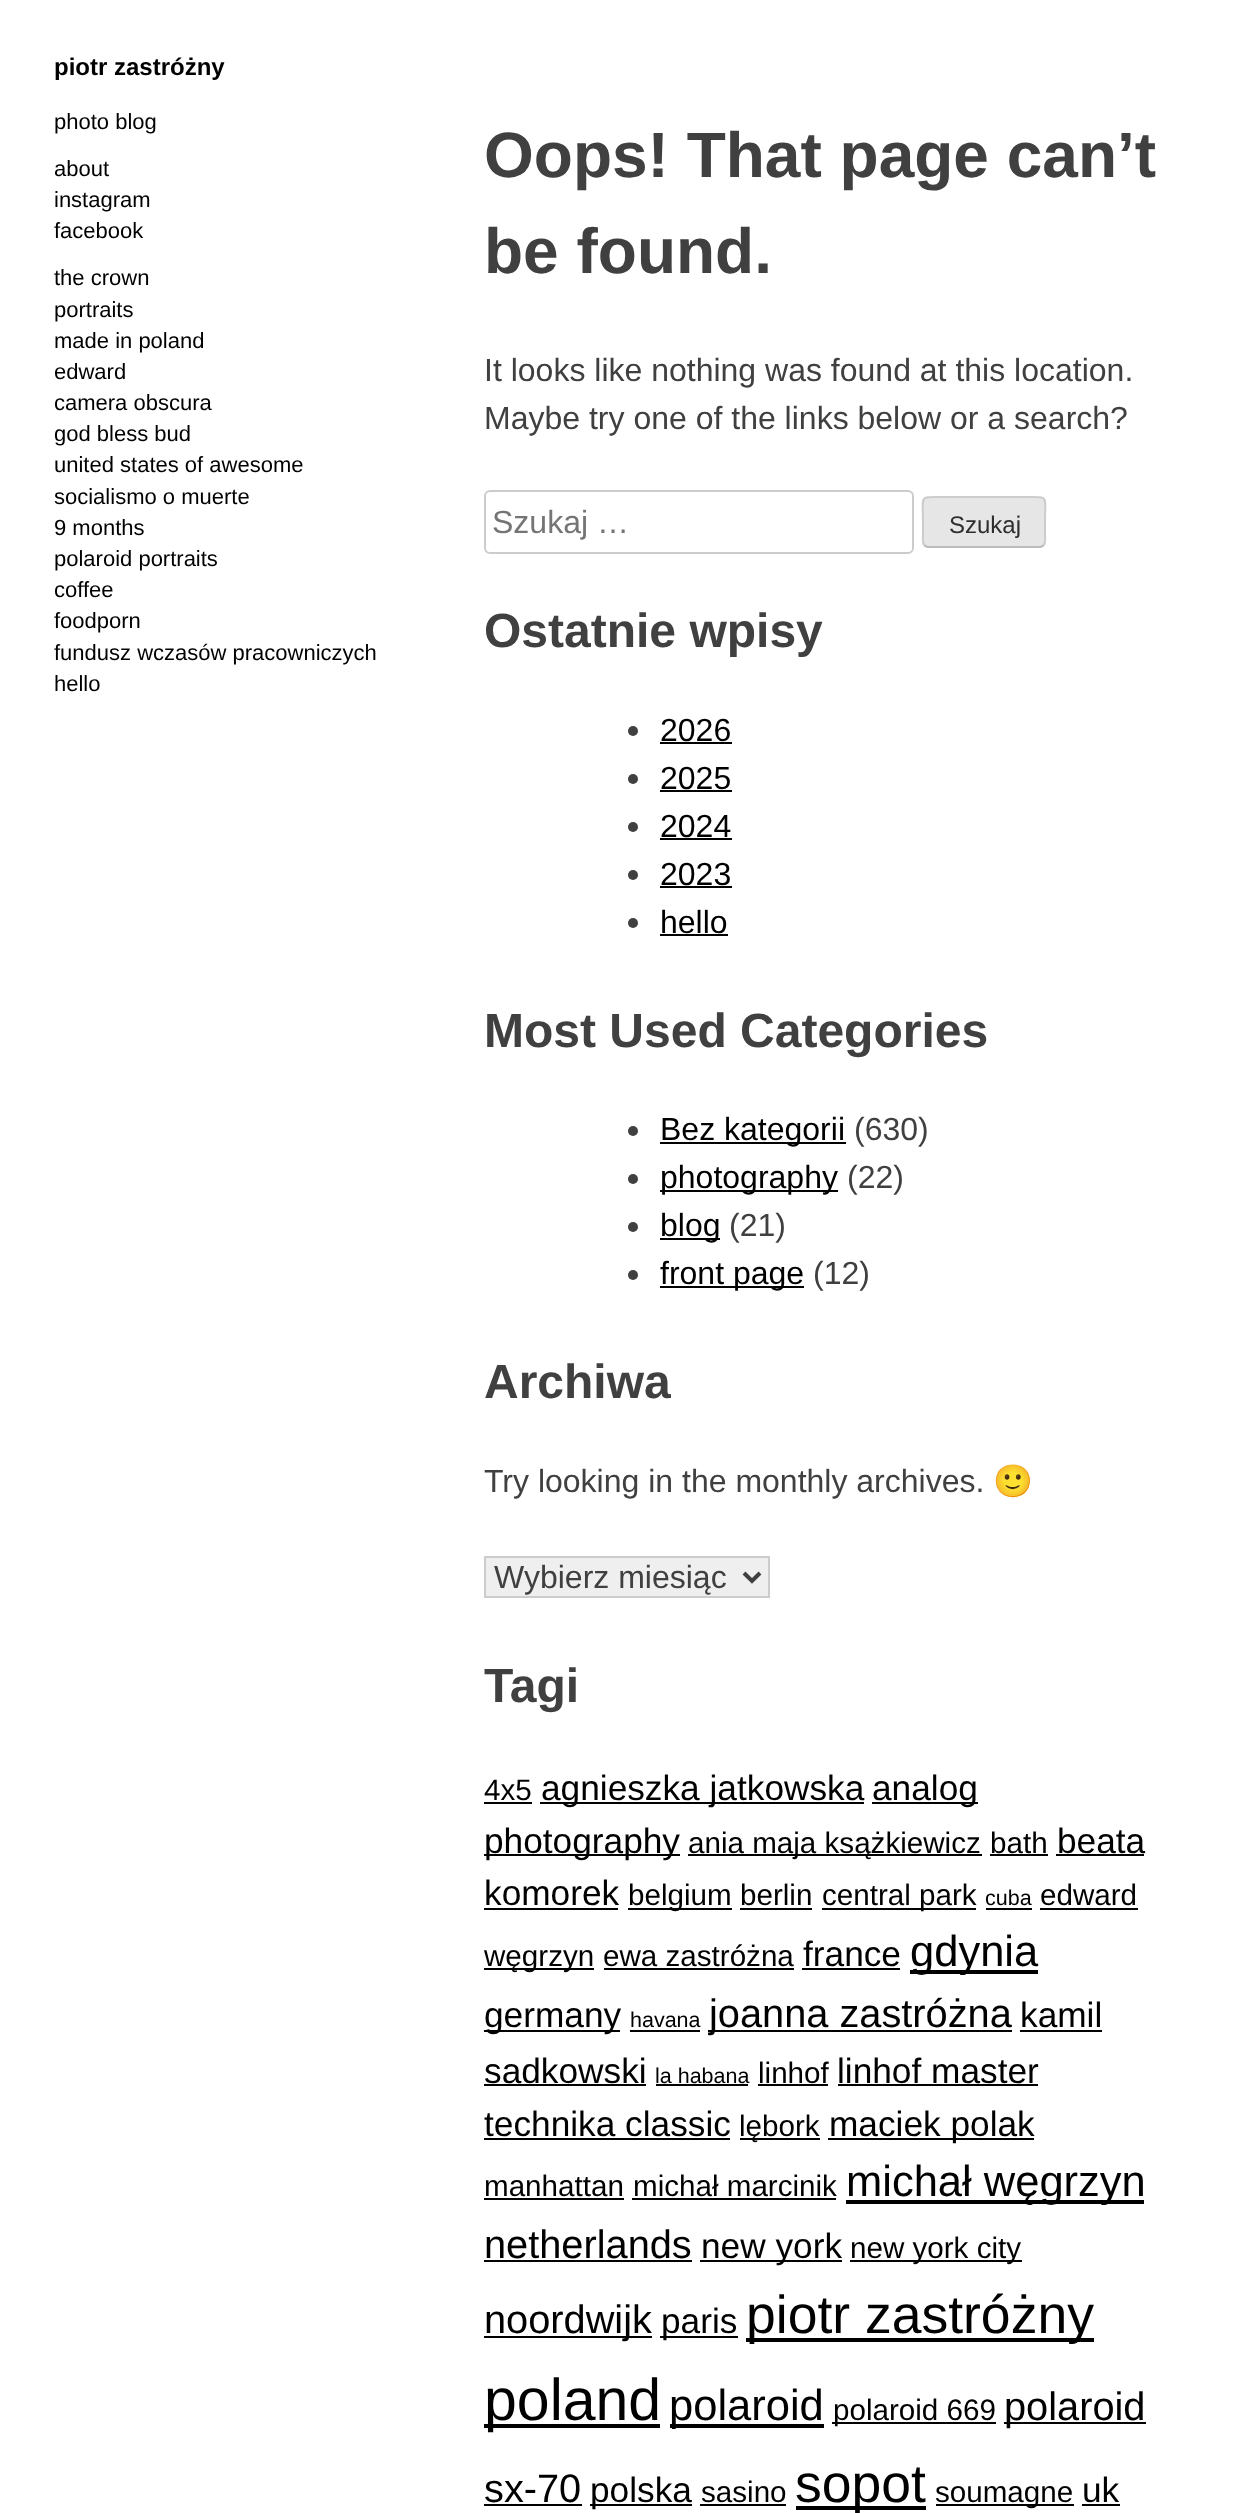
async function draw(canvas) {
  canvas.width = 1236
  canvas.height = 2513
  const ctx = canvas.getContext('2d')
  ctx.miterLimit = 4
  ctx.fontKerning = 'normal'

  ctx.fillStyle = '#fff'
  ctx.fillRect(0, 0, 1236, 2513)
  ctx.font = 'bold 24px Liberation Sans'
  ctx.fillStyle = '#000'
  ctx.fillText('piotr zastróżny', 54, 75)
  ctx.font = '22px Liberation Sans'
  ctx.fillText('photo blog', 54, 129)
  ctx.fillText('about', 54, 176)
  ctx.fillText('instagram', 54, 207)
  ctx.fillText('facebook', 54, 238)
  ctx.fillText('the crown', 54, 285)
  ctx.fillText('portraits', 54, 317)
  ctx.fillText('made in poland', 54, 348)
  ctx.fillText('edward', 54, 379)
  ctx.fillText('camera obscura', 54, 410)
  ctx.fillText('god bless bud', 54, 441)
  ctx.fillText('united states of awesome', 54, 472)
  ctx.fillText('socialismo o muerte', 54, 504)
  ctx.fillText('9 months', 54, 535)
  ctx.fillText('polaroid portraits', 54, 566)
  ctx.fillText('coffee', 54, 597)
  ctx.fillText('foodporn', 54, 628)
  ctx.fillText('fundusz wczasów pracowniczych', 54, 660)
  ctx.fillText('hello', 54, 691)
  ctx.font = 'bold 64px Liberation Sans'
  ctx.fillStyle = '#404040'
  ctx.fillText('Oops! That page can’t', 484, 177)
  ctx.fillText('be found.', 484, 273)
  ctx.font = '32px Liberation Sans'
  ctx.fillText('It looks like nothing was found at this location.', 484, 381)
  ctx.fillText('Maybe try one of the links below or a search?', 484, 429)
  ctx.beginPath()
  ctx.roundRect(485, 491, 428, 62, 5)
  ctx.strokeStyle = '#ccc'
  ctx.lineWidth = 2
  ctx.stroke()
  ctx.fillStyle = '#757575'
  ctx.fillText('Szukaj …', 492, 533)
  ctx.fillStyle = '#e6e6e6'
  ctx.beginPath()
  ctx.roundRect(922, 496, 124, 52, 6)
  ctx.fill()
  ctx.beginPath()
  ctx.moveTo(1043.5, 545.5)
  ctx.lineTo(1040.5, 547)
  ctx.lineTo(927.5, 547)
  ctx.lineTo(924.5, 545.5)
  ctx.strokeStyle = '#bbb'
  ctx.stroke()
  ctx.beginPath()
  ctx.moveTo(924.5, 545.5)
  ctx.bezierCurveTo(922, 543, 923, 538, 923, 535.5)
  ctx.lineTo(923, 522)
  ctx.bezierCurveTo(923, 493.5, 918, 497, 946.5, 497)
  ctx.lineTo(1021.5, 497)
  ctx.bezierCurveTo(1050, 497, 1045, 493.5, 1045, 522)
  ctx.lineTo(1045, 535.5)
  ctx.bezierCurveTo(1045, 538, 1046, 543, 1043.5, 545.5)
  ctx.strokeStyle = '#ccc'
  ctx.stroke()
  ctx.font = '24px Liberation Sans'
  ctx.fillStyle = '#2e2e2e'
  ctx.fillText('Szukaj', 949, 533)
  ctx.font = 'bold 48px Liberation Sans'
  ctx.fillStyle = '#404040'
  ctx.fillText('Ostatnie wpisy', 484, 647)
  ctx.beginPath()
  ctx.arc(633, 731, 5, 0, 2 * Math.PI)
  ctx.fill()
  ctx.font = '32px Liberation Sans'
  ctx.fillStyle = '#000'
  ctx.fillText('2026', 660, 741)
  ctx.fillRect(660, 742, 72, 2)
  ctx.fillStyle = '#404040'
  ctx.beginPath()
  ctx.arc(633, 779, 5, 0, 2 * Math.PI)
  ctx.fill()
  ctx.fillStyle = '#000'
  ctx.fillText('2025', 660, 789)
  ctx.fillRect(660, 790, 72, 2)
  ctx.fillStyle = '#404040'
  ctx.beginPath()
  ctx.arc(633, 827, 5, 0, 2 * Math.PI)
  ctx.fill()
  ctx.fillStyle = '#000'
  ctx.fillText('2024', 660, 837)
  ctx.fillRect(660, 838, 72, 2)
  ctx.fillStyle = '#404040'
  ctx.beginPath()
  ctx.arc(633, 875, 5, 0, 2 * Math.PI)
  ctx.fill()
  ctx.fillStyle = '#000'
  ctx.fillText('2023', 660, 885)
  ctx.fillRect(660, 886, 72, 2)
  ctx.fillStyle = '#404040'
  ctx.beginPath()
  ctx.arc(633, 923, 5, 0, 2 * Math.PI)
  ctx.fill()
  ctx.fillStyle = '#000'
  ctx.fillText('hello', 660, 933)
  ctx.fillRect(660, 934, 68, 2)
  ctx.font = 'bold 48px Liberation Sans'
  ctx.fillStyle = '#404040'
  ctx.fillText('Most Used Categories', 484, 1047)
  ctx.beginPath()
  ctx.arc(633, 1131, 5, 0, 2 * Math.PI)
  ctx.fill()
  ctx.fillStyle = '#000'
  ctx.fillRect(660, 1142, 186, 2)
  ctx.font = '32px Liberation Sans'
  ctx.fillText('Bez kategorii', 660, 1140)
  ctx.fillStyle = '#404040'
  ctx.fillText('(630)', 854, 1140)
  ctx.beginPath()
  ctx.arc(633, 1179, 5, 0, 2 * Math.PI)
  ctx.fill()
  ctx.fillStyle = '#000'
  ctx.fillRect(660, 1190, 178, 2)
  ctx.fillText('photography', 660, 1188)
  ctx.fillStyle = '#404040'
  ctx.fillText('(22)', 847, 1188)
  ctx.beginPath()
  ctx.arc(633, 1227, 5, 0, 2 * Math.PI)
  ctx.fill()
  ctx.fillStyle = '#000'
  ctx.fillRect(660, 1238, 60, 2)
  ctx.fillText('blog', 660, 1236)
  ctx.fillStyle = '#404040'
  ctx.fillText('(21)', 729, 1236)
  ctx.beginPath()
  ctx.arc(633, 1275, 5, 0, 2 * Math.PI)
  ctx.fill()
  ctx.fillStyle = '#000'
  ctx.fillRect(660, 1286, 144, 2)
  ctx.fillText('front page', 660, 1284)
  ctx.fillStyle = '#404040'
  ctx.fillText('(12)', 813, 1284)
  ctx.font = 'bold 48px Liberation Sans'
  ctx.fillText('Archiwa', 484, 1398)
  ctx.font = '32px Liberation Sans'
  ctx.fillText('Try looking in the monthly archives.', 484, 1492)
  ctx.font = '32px Noto Color Emoji'
  ctx.fillText('🙂', 993, 1492)
  ctx.fillStyle = '#efefef'
  ctx.beginPath()
  ctx.rect(485, 1557, 284, 40)
  ctx.fill()
  ctx.stroke()
  ctx.beginPath()
  ctx.moveTo(744, 1573)
  ctx.lineTo(752, 1581)
  ctx.lineTo(760, 1573)
  ctx.strokeStyle = '#404040'
  ctx.lineWidth = 4
  ctx.stroke()
  ctx.font = '32px Liberation Sans'
  ctx.fillStyle = '#404040'
  ctx.fillText('Wybierz miesiąc', 494, 1588)
  ctx.font = 'bold 48px Liberation Sans'
  ctx.fillText('Tagi', 484, 1702)
  ctx.font = '29.6px Liberation Sans'
  ctx.fillStyle = '#000'
  ctx.fillText('4x5', 484, 1800)
  ctx.fillRect(484, 1802, 48, 2)
  ctx.fillRect(540, 1802, 324, 2)
  ctx.font = '35.25px Liberation Sans'
  ctx.fillText('agnieszka jatkowska', 541, 1800)
  ctx.fillRect(872, 1802, 106, 2)
  ctx.fillText('analog', 872, 1800)
  ctx.fillRect(484, 1854, 196, 2)
  ctx.fillText('photography', 484, 1853)
  ctx.fillRect(688, 1854, 294, 2)
  ctx.font = '29.6px Liberation Sans'
  ctx.fillText('ania maja ksążkiewicz', 688, 1853)
  ctx.fillText('bath', 990, 1853)
  ctx.fillRect(990, 1854, 58, 2)
  ctx.font = '35.25px Liberation Sans'
  ctx.fillText('beata', 1057, 1853)
  ctx.fillRect(1056, 1854, 88, 2)
  ctx.fillText('komorek', 484, 1905)
  ctx.fillRect(484, 1908, 134, 2)
  ctx.fillRect(628, 1908, 104, 2)
  ctx.font = '29.6px Liberation Sans'
  ctx.fillText('belgium', 628, 1905)
  ctx.fillText('berlin', 740, 1905)
  ctx.fillRect(740, 1908, 72, 2)
  ctx.fillRect(822, 1908, 154, 2)
  ctx.fillText('central park', 822, 1905)
  ctx.font = '21.5px Liberation Sans'
  ctx.fillText('cuba', 985, 1905)
  ctx.fillRect(986, 1908, 46, 2)
  ctx.font = '29.6px Liberation Sans'
  ctx.fillText('edward', 1040, 1905)
  ctx.fillRect(1040, 1908, 98, 2)
  ctx.fillRect(484, 1968, 110, 2)
  ctx.fillText('węgrzyn', 484, 1966)
  ctx.fillText('ewa zastróżna', 603, 1966)
  ctx.fillRect(604, 1968, 190, 2)
  ctx.font = '35.25px Liberation Sans'
  ctx.fillText('france', 803, 1966)
  ctx.fillRect(802, 1968, 98, 2)
  ctx.fillRect(910, 1970, 128, 4)
  ctx.font = '43.5px Liberation Sans'
  ctx.fillText('gdynia', 910, 1966)
  ctx.fillRect(484, 2030, 136, 2)
  ctx.font = '35.25px Liberation Sans'
  ctx.fillText('germany', 484, 2027)
  ctx.font = '21.5px Liberation Sans'
  ctx.fillText('havana', 630, 2027)
  ctx.fillRect(630, 2030, 70, 2)
  ctx.fillRect(708, 2030, 304, 2)
  ctx.font = '39.75px Liberation Sans'
  ctx.fillText('joanna zastróżna', 709, 2027)
  ctx.font = '35.25px Liberation Sans'
  ctx.fillText('kamil', 1020, 2027)
  ctx.fillRect(1020, 2030, 82, 2)
  ctx.fillText('sadkowski', 484, 2083)
  ctx.fillRect(484, 2084, 162, 2)
  ctx.font = '21.5px Liberation Sans'
  ctx.fillText('la habana', 655, 2083)
  ctx.fillRect(656, 2084, 92, 2)
  ctx.font = '29.6px Liberation Sans'
  ctx.fillText('linhof', 758, 2083)
  ctx.fillRect(758, 2084, 70, 2)
  ctx.font = '35.25px Liberation Sans'
  ctx.fillText('linhof master', 837, 2083)
  ctx.fillRect(838, 2084, 200, 2)
  ctx.fillText('technika classic', 484, 2136)
  ctx.fillRect(484, 2138, 246, 2)
  ctx.fillRect(740, 2138, 80, 2)
  ctx.font = '29.6px Liberation Sans'
  ctx.fillText('lębork', 739, 2136)
  ctx.fillRect(828, 2138, 206, 2)
  ctx.font = '35.25px Liberation Sans'
  ctx.fillText('maciek polak', 829, 2136)
  ctx.font = '29.6px Liberation Sans'
  ctx.fillText('manhattan', 484, 2196)
  ctx.fillRect(484, 2198, 140, 2)
  ctx.fillText('michał marcinik', 633, 2196)
  ctx.fillRect(632, 2198, 204, 2)
  ctx.fillRect(846, 2200, 298, 4)
  ctx.font = '43.5px Liberation Sans'
  ctx.fillText('michał węgrzyn', 846, 2196)
  ctx.font = '39.75px Liberation Sans'
  ctx.fillText('netherlands', 484, 2258)
  ctx.fillRect(484, 2260, 208, 2)
  ctx.fillRect(700, 2260, 142, 2)
  ctx.font = '35.25px Liberation Sans'
  ctx.fillText('new york', 701, 2258)
  ctx.fillRect(850, 2260, 172, 2)
  ctx.font = '29.6px Liberation Sans'
  ctx.fillText('new york city', 850, 2258)
  ctx.fillRect(484, 2336, 168, 2)
  ctx.font = '39.75px Liberation Sans'
  ctx.fillText('noordwijk', 484, 2333)
  ctx.fillRect(660, 2336, 78, 2)
  ctx.font = '35.25px Liberation Sans'
  ctx.fillText('paris', 661, 2333)
  ctx.fillRect(746, 2338, 348, 4)
  ctx.font = '53.5px Liberation Sans'
  ctx.fillText('piotr zastróżny', 746, 2333)
  ctx.fillRect(484, 2424, 176, 4)
  ctx.font = '59px Liberation Sans'
  ctx.fillText('poland', 484, 2420)
  ctx.fillRect(670, 2424, 154, 4)
  ctx.font = '43.5px Liberation Sans'
  ctx.fillText('polaroid', 669, 2420)
  ctx.fillRect(832, 2422, 164, 2)
  ctx.font = '29.6px Liberation Sans'
  ctx.fillText('polaroid 669', 833, 2420)
  ctx.fillRect(1004, 2422, 142, 2)
  ctx.font = '39.75px Liberation Sans'
  ctx.fillText('polaroid', 1004, 2420)
  ctx.fillText('sx-70', 484, 2502)
  ctx.fillRect(484, 2504, 98, 2)
  ctx.fillRect(590, 2504, 102, 2)
  ctx.font = '35.25px Liberation Sans'
  ctx.fillText('polska', 590, 2502)
  ctx.font = '29.6px Liberation Sans'
  ctx.fillText('sasino', 701, 2502)
  ctx.fillRect(700, 2504, 86, 2)
  ctx.fillRect(796, 2506, 130, 4)
  ctx.font = '53.5px Liberation Sans'
  ctx.fillText('sopot', 795, 2502)
  ctx.fillRect(936, 2504, 138, 2)
  ctx.font = '29.6px Liberation Sans'
  ctx.fillText('soumagne', 935, 2502)
  ctx.font = '35.25px Liberation Sans'
  ctx.fillText('uk', 1082, 2502)
  ctx.fillRect(1082, 2504, 38, 2)
}

draw(document.querySelector('canvas'))
